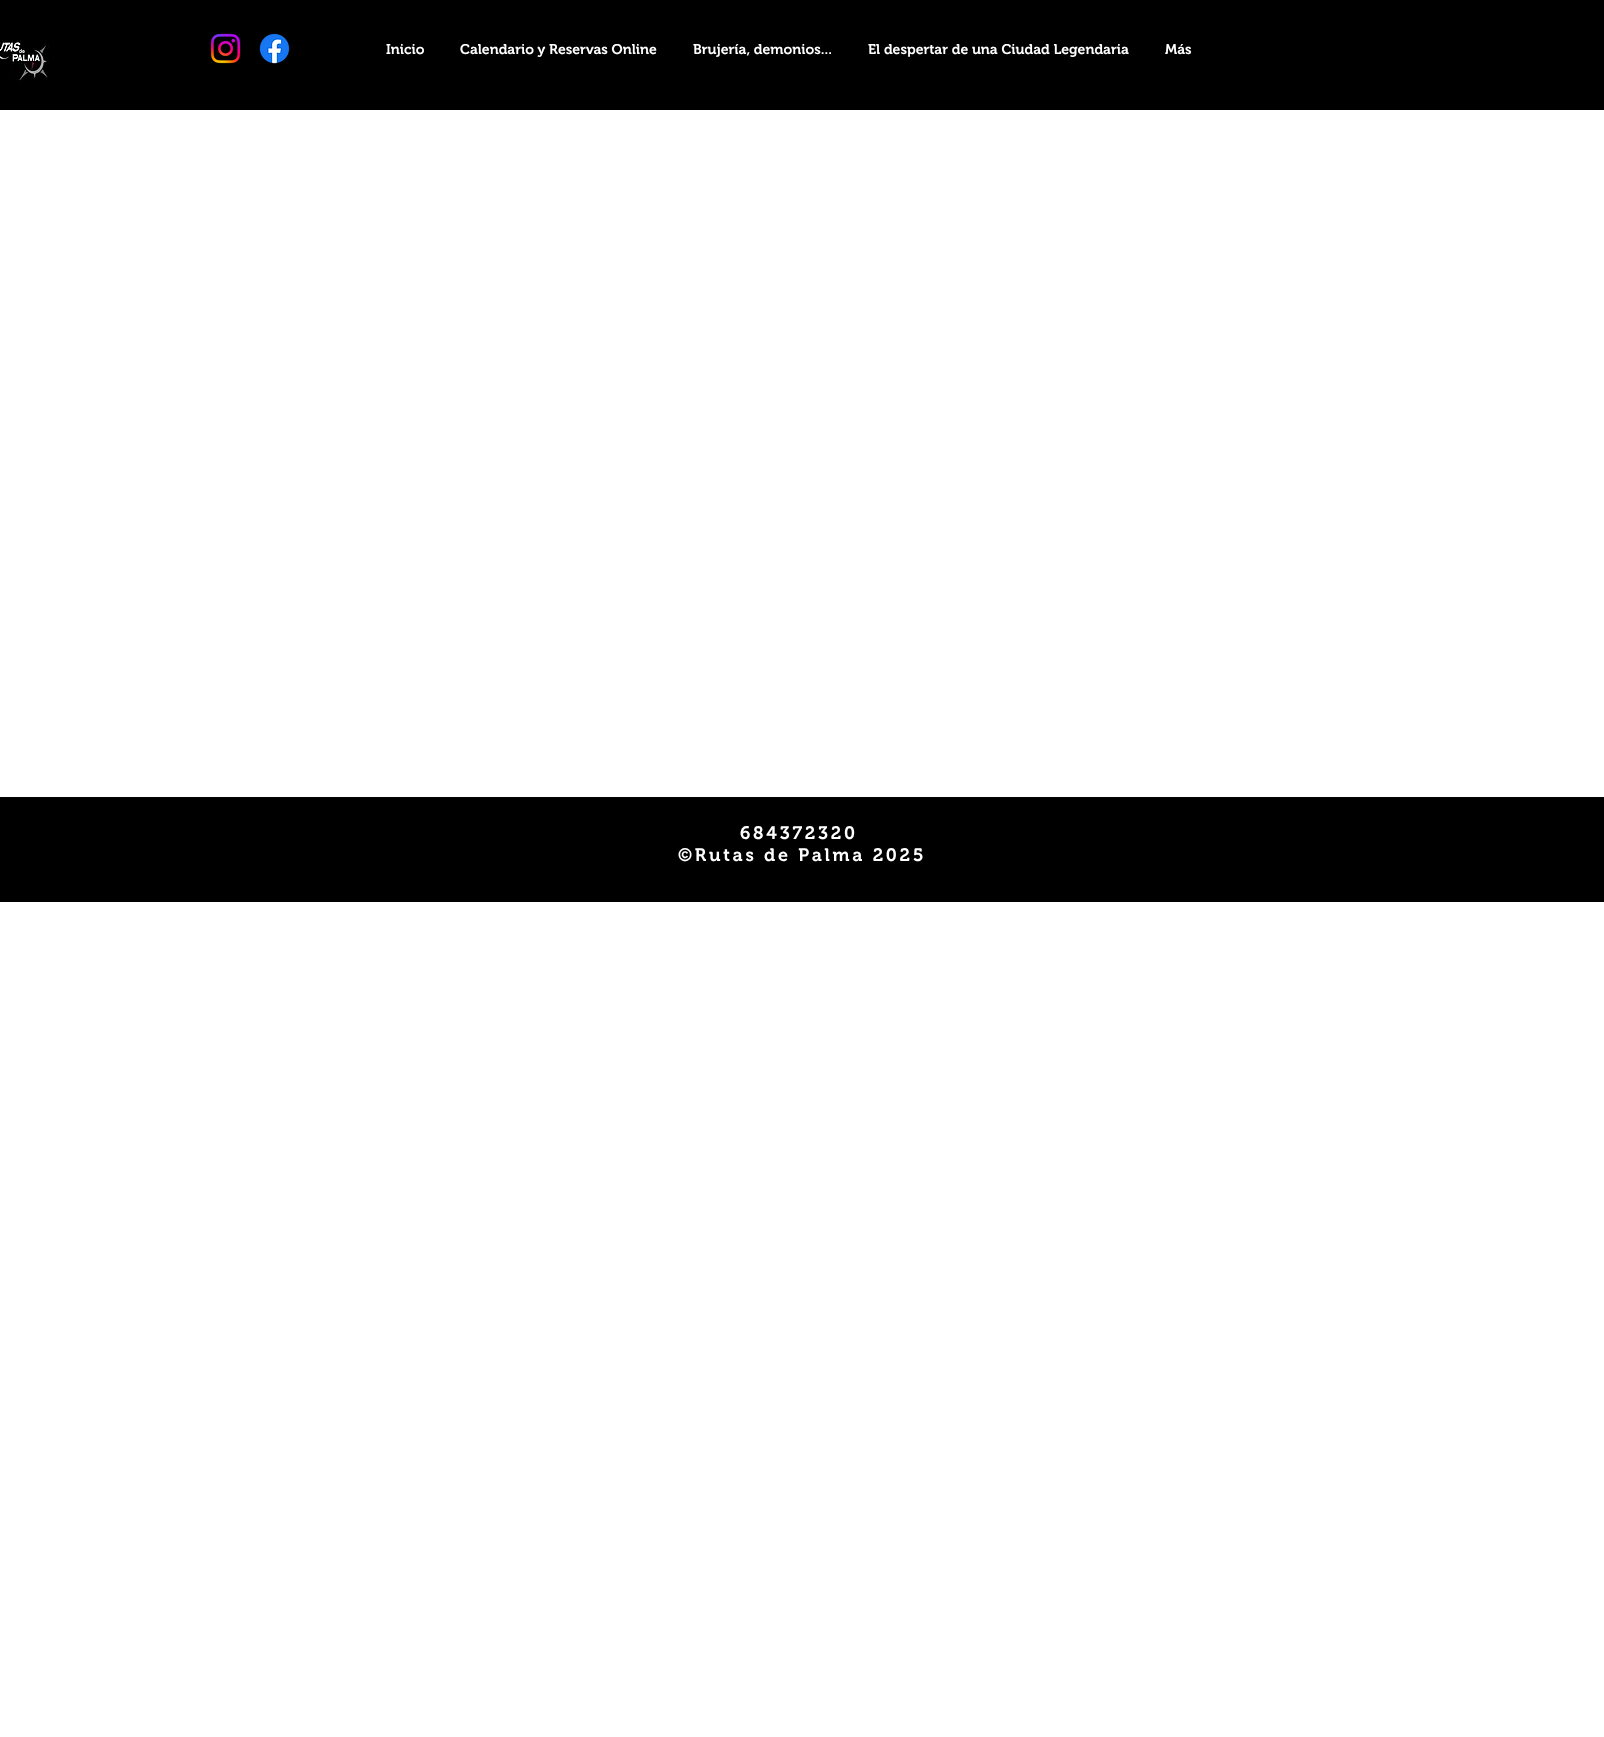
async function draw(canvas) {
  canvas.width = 1604
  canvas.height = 1737
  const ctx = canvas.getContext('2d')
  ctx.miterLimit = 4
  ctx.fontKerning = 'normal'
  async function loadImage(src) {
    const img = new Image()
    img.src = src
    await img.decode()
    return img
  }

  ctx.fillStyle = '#fff'
  ctx.fillRect(0, 0, 1604, 1737)
  ctx.fillStyle = '#000'
  ctx.fillRect(0, 0, 1604, 110)
  ctx.drawImage(await loadImage('image0.png'), 0, 36, 49, 48)
  ctx.drawImage(await loadImage('image1.png'), 210, 33, 31, 31)
  ctx.drawImage(await loadImage('image2.png'), 259, 33, 31, 31)
  ctx.font = '600 14px "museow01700"'
  ctx.fillStyle = '#fff'
  ctx.fillText('Inicio', 386, 54)
  ctx.fillText('Calendario y Reservas Online', 460, 54)
  ctx.fillText('Brujería, demonios...', 693, 54)
  ctx.fillText('El despertar de una Ciudad Legendaria', 868, 54)
  ctx.fillText('Más', 1165, 54)
  ctx.fillStyle = '#000'
  ctx.fillRect(0, 798, 1604, 104)
  ctx.fillStyle = '#020303'
  ctx.fillRect(0, 797, 1604, 1)
  ctx.letterSpacing = '2.75px'
  ctx.font = '600 18px "museow01700"'
  ctx.fillStyle = '#fff'
  ctx.fillText('684372320', 740, 839)
  ctx.fillText('©Rutas de Palma 2025', 678, 861)
}

draw(document.querySelector('canvas'))
